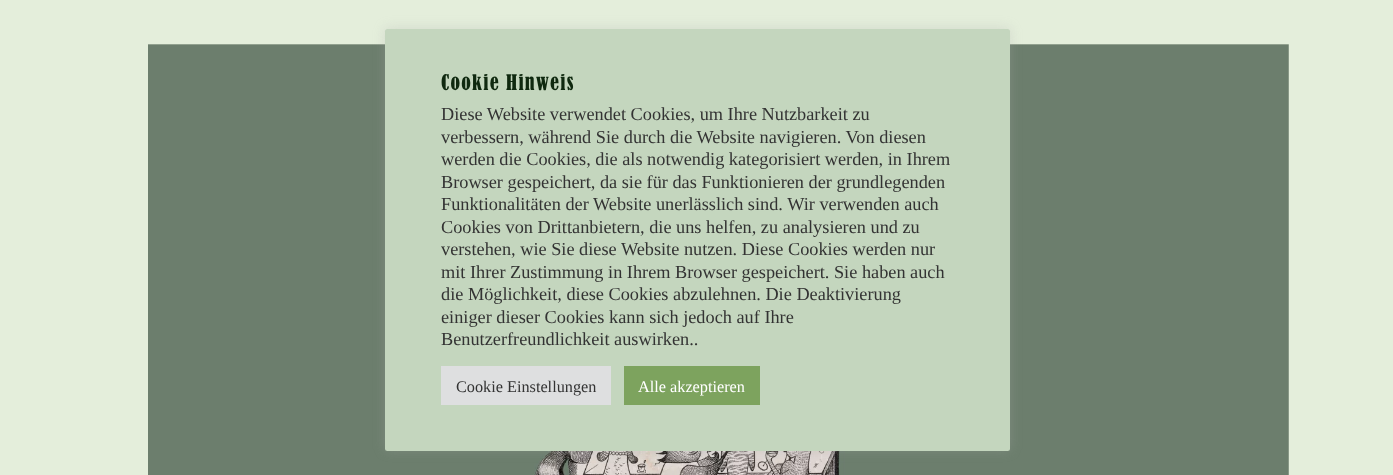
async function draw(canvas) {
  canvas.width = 1393
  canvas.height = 475
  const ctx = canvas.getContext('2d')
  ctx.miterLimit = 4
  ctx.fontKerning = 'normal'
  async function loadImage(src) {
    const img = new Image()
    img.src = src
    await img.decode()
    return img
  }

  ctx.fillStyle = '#e4eedb'
  ctx.fillRect(0, 0, 1393, 475)
  ctx.drawImage(await loadImage('image0.png'), 148, 44, 1141, 431)
  ctx.fillStyle = '#acabab4d'
  ctx.filter = 'blur(6px)'
  ctx.beginPath()
  ctx.roundRect(385, 28, 625, 422, 2.5)
  ctx.fill()
  ctx.filter = 'none'
  ctx.fillStyle = '#c4d6be'
  ctx.beginPath()
  ctx.roundRect(385, 29, 625, 422, 2.5)
  ctx.fill()
  ctx.letterSpacing = '1.25px'
  ctx.font = '20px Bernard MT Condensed'
  ctx.fillStyle = '#0f290f'
  ctx.fillText('Cookie Hinweis', 441, 90)
  ctx.letterSpacing = '0px'
  ctx.font = '18.3px Liberation Serif'
  ctx.fillStyle = '#333'
  ctx.fillText('Diese Website verwendet Cookies, um Ihre Nutzbarkeit zu', 441, 120)
  ctx.fillText('verbessern, während Sie durch die Website navigieren. Von diesen', 441, 143)
  ctx.fillText('werden die Cookies, die als notwendig kategorisiert werden, in Ihrem', 441, 165)
  ctx.fillText('Browser gespeichert, da sie für das Funktionieren der grundlegenden', 441, 188)
  ctx.fillText('Funktionalitäten der Website unerlässlich sind. Wir verwenden auch', 441, 210)
  ctx.fillText('Cookies von Drittanbietern, die uns helfen, zu analysieren und zu', 441, 233)
  ctx.fillText('verstehen, wie Sie diese Website nutzen. Diese Cookies werden nur', 441, 255)
  ctx.fillText('mit Ihrer Zustimmung in Ihrem Browser gespeichert. Sie haben auch', 441, 278)
  ctx.fillText('die Möglichkeit, diese Cookies abzulehnen. Die Deaktivierung', 441, 300)
  ctx.fillText('einiger dieser Cookies kann sich jedoch auf Ihre', 441, 323)
  ctx.fillText('Benutzerfreundlichkeit auswirken..', 441, 345)
  ctx.fillStyle = '#dedfe0'
  ctx.fillRect(441, 366, 170, 39)
  ctx.font = '16.25px Liberation Serif'
  ctx.fillStyle = '#333'
  ctx.fillText('Cookie Einstellungen', 456, 392)
  ctx.fillStyle = '#7da35e'
  ctx.fillRect(624, 366, 136, 39)
  ctx.fillStyle = '#fff'
  ctx.fillText('Alle akzeptieren', 638, 392)
}

draw(document.querySelector('canvas'))
